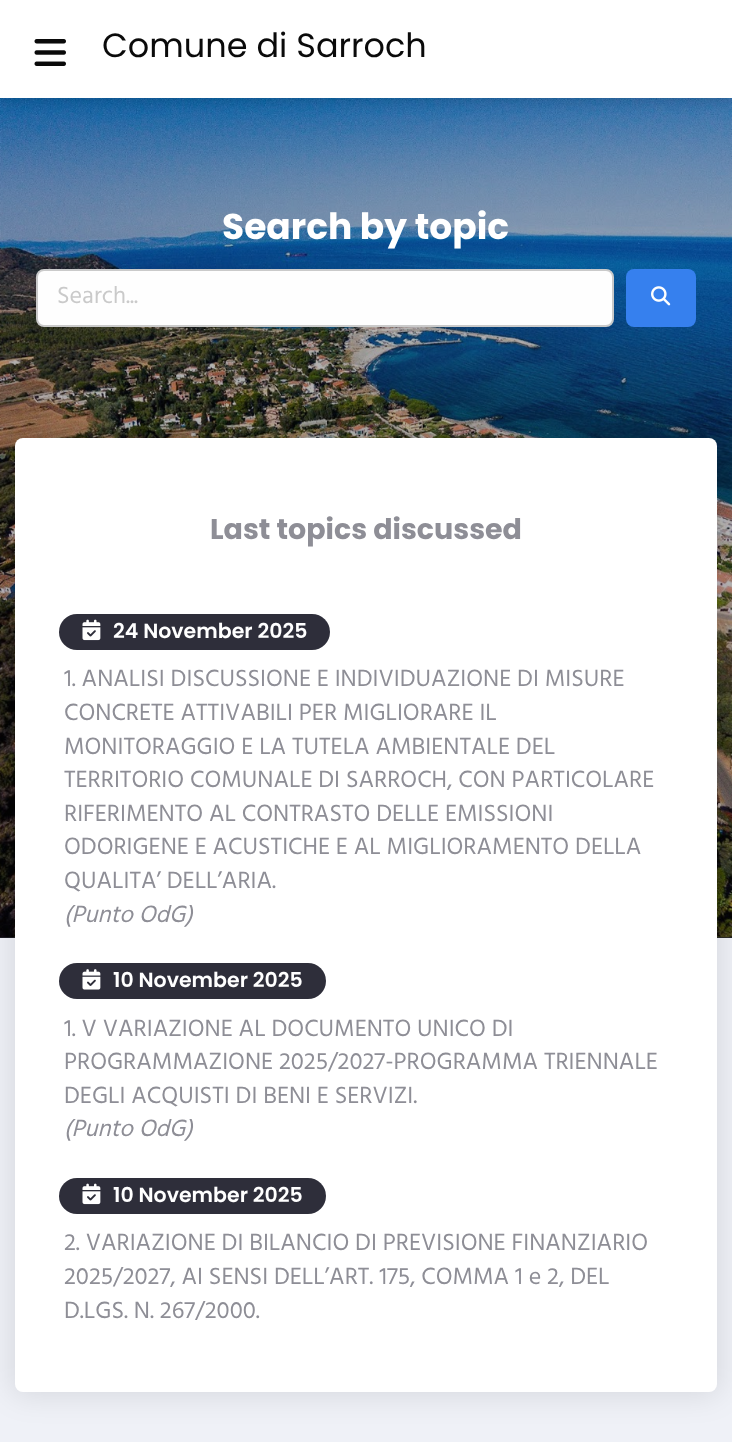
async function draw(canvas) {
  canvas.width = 732
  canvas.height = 1442
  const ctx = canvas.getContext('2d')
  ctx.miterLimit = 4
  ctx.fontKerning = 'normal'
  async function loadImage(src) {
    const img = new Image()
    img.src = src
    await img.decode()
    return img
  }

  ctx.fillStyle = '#23232c'
  ctx.fillRect(0, 0, 732, 1442)
  ctx.drawImage(await loadImage('image1.png'), 0, 98, 732, 840)
  ctx.fillStyle = '#0a0a0a33'
  ctx.filter = 'blur(7.5px)'
  ctx.beginPath()
  ctx.rect(0, 0, 732, 98)
  ctx.fill()
  ctx.filter = 'none'
  ctx.fillStyle = '#fff'
  ctx.fillRect(0, 0, 732, 98)
  ctx.drawImage(await loadImage('image0.png'), 34, 39, 32, 27)
  ctx.font = '33.5px Poppins'
  ctx.fillStyle = '#0a0a0a'
  ctx.fillText('Comune di Sarroch', 102, 57)
  ctx.font = 'bold 36px Poppins'
  ctx.fillStyle = '#fff'
  ctx.fillText('Search by topic', 222, 239)
  ctx.fillStyle = '#fefefe'
  ctx.beginPath()
  ctx.roundRect(37, 270, 576, 56, 7)
  ctx.fill()
  ctx.strokeStyle = '#cacaca'
  ctx.lineWidth = 2
  ctx.stroke()
  ctx.font = '24px Hind'
  ctx.fillStyle = '#cacaca'
  ctx.fillText('Search...', 57, 303)
  ctx.fillStyle = '#3680ee'
  ctx.beginPath()
  ctx.roundRect(626, 269, 70, 58, 8)
  ctx.fill()
  ctx.drawImage(await loadImage('image2.png'), 651, 286, 20, 20)
  ctx.fillStyle = '#eff1f7'
  ctx.fillRect(0, 938, 732, 504)
  ctx.fillStyle = '#0000001a'
  ctx.filter = 'blur(15px)'
  ctx.beginPath()
  ctx.roundRect(12, 435, 708, 960, 11)
  ctx.fill()
  ctx.filter = 'none'
  ctx.fillStyle = '#fff'
  ctx.beginPath()
  ctx.roundRect(15, 438, 702, 954, 8)
  ctx.fill()
  ctx.font = 'bold 28.5px Poppins'
  ctx.fillStyle = '#8e8e96'
  ctx.fillText('Last topics discussed', 210, 539)
  ctx.fillStyle = '#2e2e3a'
  ctx.beginPath()
  ctx.roundRect(59, 614, 271, 36, 18)
  ctx.fill()
  ctx.drawImage(await loadImage('image3.png'), 82, 619, 19, 22)
  ctx.font = '600 20.5px Poppins'
  ctx.fillStyle = '#fff'
  ctx.fillText('24 November 2025', 113, 638)
  ctx.font = '24px Hind'
  ctx.fillStyle = '#8e8e96'
  ctx.fillText('1. ANALISI DISCUSSIONE E INDIVIDUAZIONE DI MISURE', 64, 686)
  ctx.fillText('CONCRETE ATTIVABILI PER MIGLIORARE IL', 64, 720)
  ctx.fillText('MONITORAGGIO E LA TUTELA AMBIENTALE DEL', 64, 754)
  ctx.fillText('TERRITORIO COMUNALE DI SARROCH, CON PARTICOLARE', 64, 787)
  ctx.fillText('RIFERIMENTO AL CONTRASTO DELLE EMISSIONI', 64, 821)
  ctx.fillText('ODORIGENE E ACUSTICHE E AL MIGLIORAMENTO DELLA', 64, 854)
  ctx.fillText('QUALITA’ DELL’ARIA.', 64, 888)
  ctx.font = 'italic 24px Hind'
  ctx.fillText('(Punto OdG)', 64, 922)
  ctx.fillStyle = '#2e2e3a'
  ctx.beginPath()
  ctx.roundRect(59, 963, 267, 36, 18)
  ctx.fill()
  ctx.drawImage(await loadImage('image4.png'), 82, 969, 19, 21)
  ctx.font = '600 20.5px Poppins'
  ctx.fillStyle = '#fff'
  ctx.fillText('10 November 2025', 113, 987)
  ctx.font = '24px Hind'
  ctx.fillStyle = '#8e8e96'
  ctx.fillText('1. V VARIAZIONE AL DOCUMENTO UNICO DI', 64, 1036)
  ctx.fillText('PROGRAMMAZIONE 2025/2027-PROGRAMMA TRIENNALE', 64, 1069)
  ctx.fillText('DEGLI ACQUISTI DI BENI E SERVIZI.', 64, 1103)
  ctx.font = 'italic 24px Hind'
  ctx.fillText('(Punto OdG)', 64, 1136)
  ctx.fillStyle = '#2e2e3a'
  ctx.beginPath()
  ctx.roundRect(59, 1178, 267, 36, 18)
  ctx.fill()
  ctx.drawImage(await loadImage('image3.png'), 82, 1183, 19, 22)
  ctx.font = '600 20.5px Poppins'
  ctx.fillStyle = '#fff'
  ctx.fillText('10 November 2025', 113, 1202)
  ctx.font = '24px Hind'
  ctx.fillStyle = '#8e8e96'
  ctx.fillText('2. VARIAZIONE DI BILANCIO DI PREVISIONE FINANZIARIO', 64, 1250)
  ctx.fillText('2025/2027, AI SENSI DELL’ART. 175, COMMA 1 e 2, DEL', 64, 1284)
  ctx.save()
  ctx.beginPath()
  ctx.rect(44, 599, 645, 721)
  ctx.clip()
  ctx.fillText('D.LGS. N. 267/2000.', 64, 1318)
  ctx.restore()
}

draw(document.querySelector('canvas'))
